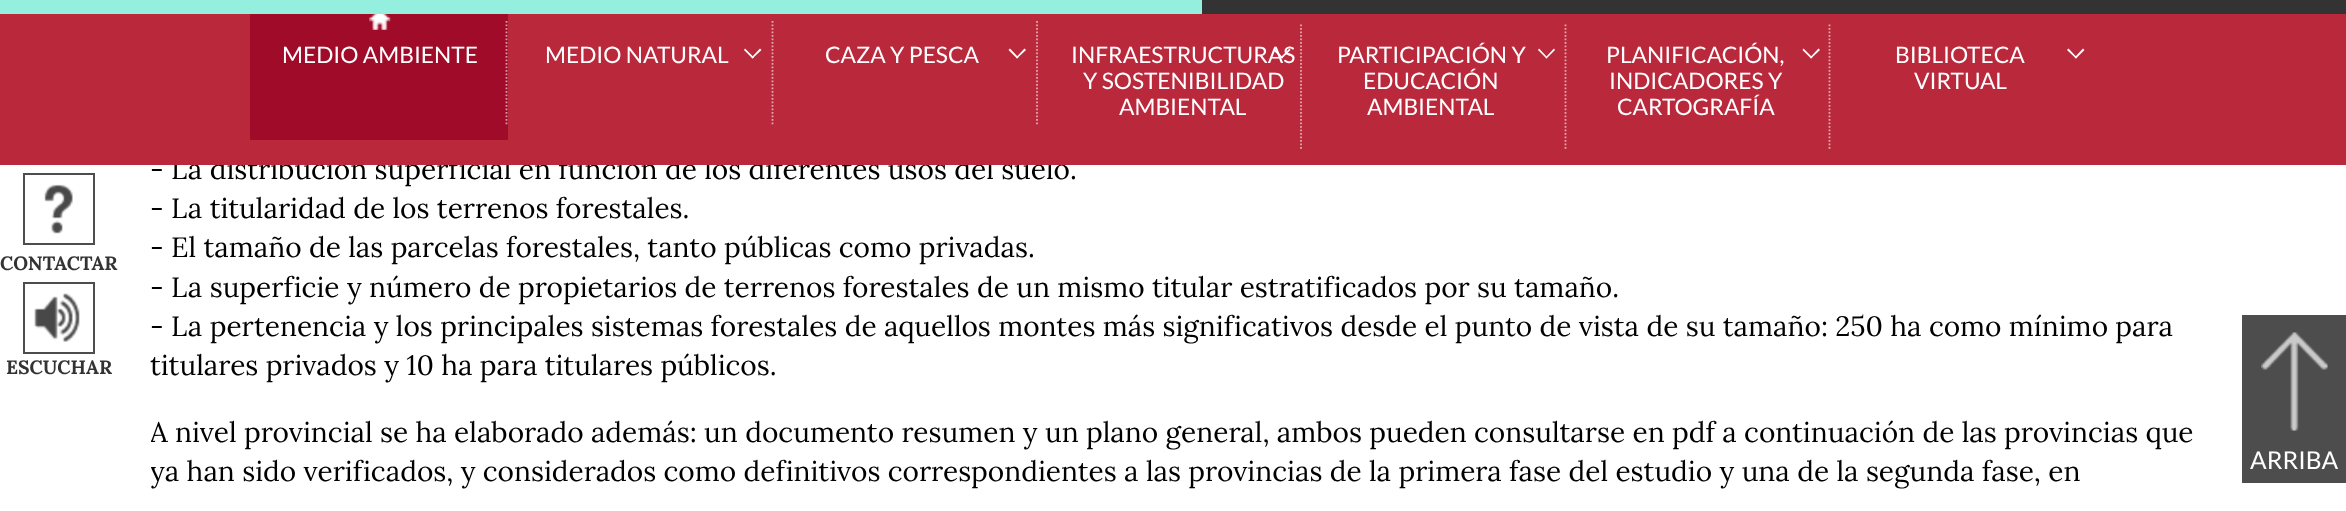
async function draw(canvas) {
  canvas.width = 2346
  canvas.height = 511
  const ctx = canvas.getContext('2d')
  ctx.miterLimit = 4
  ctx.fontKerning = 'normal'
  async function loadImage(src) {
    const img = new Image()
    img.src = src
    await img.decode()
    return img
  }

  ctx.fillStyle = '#fff'
  ctx.fillRect(0, 0, 2346, 511)
  ctx.font = '28px Lora'
  ctx.fillStyle = '#000'
  ctx.fillText('- La distribución superficial en función de los diferentes usos del suelo.', 150, 179)
  ctx.fillStyle = '#ba283b'
  ctx.fillRect(0, 14, 2346, 151)
  ctx.fillStyle = '#333'
  ctx.fillRect(1202, 0, 1144, 14)
  ctx.fillStyle = '#94efdf'
  ctx.fillRect(0, 0, 1202, 14)
  ctx.fillStyle = '#9f0b28'
  ctx.fillRect(250, 14, 258, 126)
  ctx.drawImage(await loadImage('image0.png'), 369, 14, 22, 16)
  ctx.font = '22.75px Lato'
  ctx.fillStyle = '#fff'
  ctx.fillText('MEDIO AMBIENTE', 282, 63)
  ctx.beginPath()
  ctx.moveTo(506.5, 21)
  ctx.lineTo(506.5, 126)
  ctx.strokeStyle = '#d99da9'
  ctx.lineWidth = 1.8
  ctx.setLineDash([1.75, 1.75])
  ctx.stroke()
  ctx.fillText('MEDIO NATURAL', 545, 63)
  ctx.beginPath()
  ctx.moveTo(760, 48.5)
  ctx.lineTo(761.5, 50)
  ctx.lineTo(752.5, 58.5)
  ctx.lineTo(751.5, 57.5)
  ctx.closePath()
  ctx.fill()
  ctx.beginPath()
  ctx.moveTo(745, 48.5)
  ctx.lineTo(754, 57.5)
  ctx.lineTo(752.5, 58.5)
  ctx.lineTo(744, 50)
  ctx.closePath()
  ctx.fill()
  ctx.beginPath()
  ctx.moveTo(772.5, 21)
  ctx.lineTo(772.5, 126)
  ctx.strokeStyle = '#e3a9b1'
  ctx.stroke()
  ctx.fillText('CAZA Y PESCA', 825, 63)
  ctx.beginPath()
  ctx.moveTo(1024.5, 48.5)
  ctx.lineTo(1026, 50)
  ctx.lineTo(1017, 58.5)
  ctx.lineTo(1016, 57.5)
  ctx.closePath()
  ctx.fill()
  ctx.beginPath()
  ctx.moveTo(1010, 48.5)
  ctx.lineTo(1018.5, 57.5)
  ctx.lineTo(1017, 58.5)
  ctx.lineTo(1008.5, 50)
  ctx.closePath()
  ctx.fill()
  ctx.beginPath()
  ctx.moveTo(1037, 21)
  ctx.lineTo(1037, 126)
  ctx.stroke()
  ctx.fillText('INFRAESTRUCTURAS', 1071, 63)
  ctx.beginPath()
  ctx.moveTo(1289.5, 48.5)
  ctx.lineTo(1290.5, 50)
  ctx.lineTo(1282, 58.5)
  ctx.lineTo(1280.5, 57.5)
  ctx.closePath()
  ctx.fill()
  ctx.beginPath()
  ctx.moveTo(1274.5, 48.5)
  ctx.lineTo(1283, 57.5)
  ctx.lineTo(1282, 58.5)
  ctx.lineTo(1273, 50)
  ctx.closePath()
  ctx.fill()
  ctx.fillText('Y SOSTENIBILIDAD', 1083, 89)
  ctx.fillText('AMBIENTAL', 1119, 115)
  ctx.beginPath()
  ctx.moveTo(1301, 24.5)
  ctx.lineTo(1301, 149)
  ctx.stroke()
  ctx.fillText('PARTICIPACIÓN Y', 1337, 63)
  ctx.beginPath()
  ctx.moveTo(1554, 48.5)
  ctx.lineTo(1555, 50)
  ctx.lineTo(1546.5, 58.5)
  ctx.lineTo(1545.5, 57.5)
  ctx.closePath()
  ctx.fill()
  ctx.beginPath()
  ctx.moveTo(1539, 48.5)
  ctx.lineTo(1547.5, 57.5)
  ctx.lineTo(1546.5, 58.5)
  ctx.lineTo(1538, 50)
  ctx.closePath()
  ctx.fill()
  ctx.fillText('EDUCACIÓN', 1363, 89)
  ctx.fillText('AMBIENTAL', 1367, 115)
  ctx.beginPath()
  ctx.moveTo(1565.5, 24.5)
  ctx.lineTo(1565.5, 149)
  ctx.stroke()
  ctx.fillText('PLANIFICACIÓN,', 1606, 63)
  ctx.beginPath()
  ctx.moveTo(1818.5, 48.5)
  ctx.lineTo(1820, 50)
  ctx.lineTo(1811, 58.5)
  ctx.lineTo(1810, 57.5)
  ctx.closePath()
  ctx.fill()
  ctx.beginPath()
  ctx.moveTo(1803.5, 48.5)
  ctx.lineTo(1812.5, 57.5)
  ctx.lineTo(1811, 58.5)
  ctx.lineTo(1802.5, 50)
  ctx.closePath()
  ctx.fill()
  ctx.fillText('INDICADORES Y', 1609, 89)
  ctx.fillText('CARTOGRAFÍA', 1617, 115)
  ctx.beginPath()
  ctx.moveTo(1829.5, 24.5)
  ctx.lineTo(1829.5, 149)
  ctx.stroke()
  ctx.fillText('BIBLIOTECA', 1895, 63)
  ctx.beginPath()
  ctx.moveTo(2083, 48.5)
  ctx.lineTo(2084.5, 50)
  ctx.lineTo(2076, 58.5)
  ctx.lineTo(2074.5, 57.5)
  ctx.closePath()
  ctx.fill()
  ctx.beginPath()
  ctx.moveTo(2068.5, 48.5)
  ctx.lineTo(2077, 57.5)
  ctx.lineTo(2076, 58.5)
  ctx.lineTo(2067, 50)
  ctx.closePath()
  ctx.fill()
  ctx.fillText('VIRTUAL', 1914, 89)
  ctx.strokeStyle = '#4d4d4d'
  ctx.lineWidth = 2
  ctx.setLineDash([])
  ctx.strokeRect(24, 174, 70, 70)
  ctx.drawImage(await loadImage('image1.png'), 44, 184, 29, 50)
  ctx.font = 'bold 19.25px Lora'
  ctx.fillStyle = '#333'
  ctx.fillText('CONTACTAR', 0, 270)
  ctx.strokeRect(24, 283, 70, 70)
  ctx.drawImage(await loadImage('image2.png'), 34, 293, 46, 49)
  ctx.fillText('ESCUCHAR', 6, 374)
  ctx.font = '28px Lora'
  ctx.fillStyle = '#000'
  ctx.fillText('- La titularidad de los terrenos forestales.', 150, 218)
  ctx.fillText('- El tamaño de las parcelas forestales, tanto públicas como privadas.', 150, 257)
  ctx.fillText('- La superficie y número de propietarios de terrenos forestales de un mismo titular estratificados por su tamaño.', 150, 297)
  ctx.fillText('- La pertenencia y los principales sistemas forestales de aquellos montes más significativos desde el punto de vista de su tamaño: 250 ha como mínimo para', 150, 336)
  ctx.fillText('titulares privados y 10 ha para titulares públicos.', 150, 375)
  ctx.save()
  ctx.beginPath()
  ctx.rect(151, 0, 2047, 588)
  ctx.clip()
  ctx.fillText('A nivel provincial se ha elaborado además: un documento resumen y un plano general, ambos pueden consultarse en pdf a continuación de las provincias que', 150, 442)
  ctx.fillText('ya han sido verificados, y considerados como definitivos correspondientes a las provincias de la primera fase del estudio y una de la segunda fase, en', 150, 481)
  ctx.restore()
  ctx.fillStyle = '#4d4d4d'
  ctx.fillRect(2242, 315, 104, 168)
  ctx.drawImage(await loadImage('image3.png'), 2261, 332, 67, 99)
  ctx.font = '24.5px Lato'
  ctx.fillStyle = '#fff'
  ctx.fillText('ARRIBA', 2250, 469)
}

draw(document.querySelector('canvas'))
